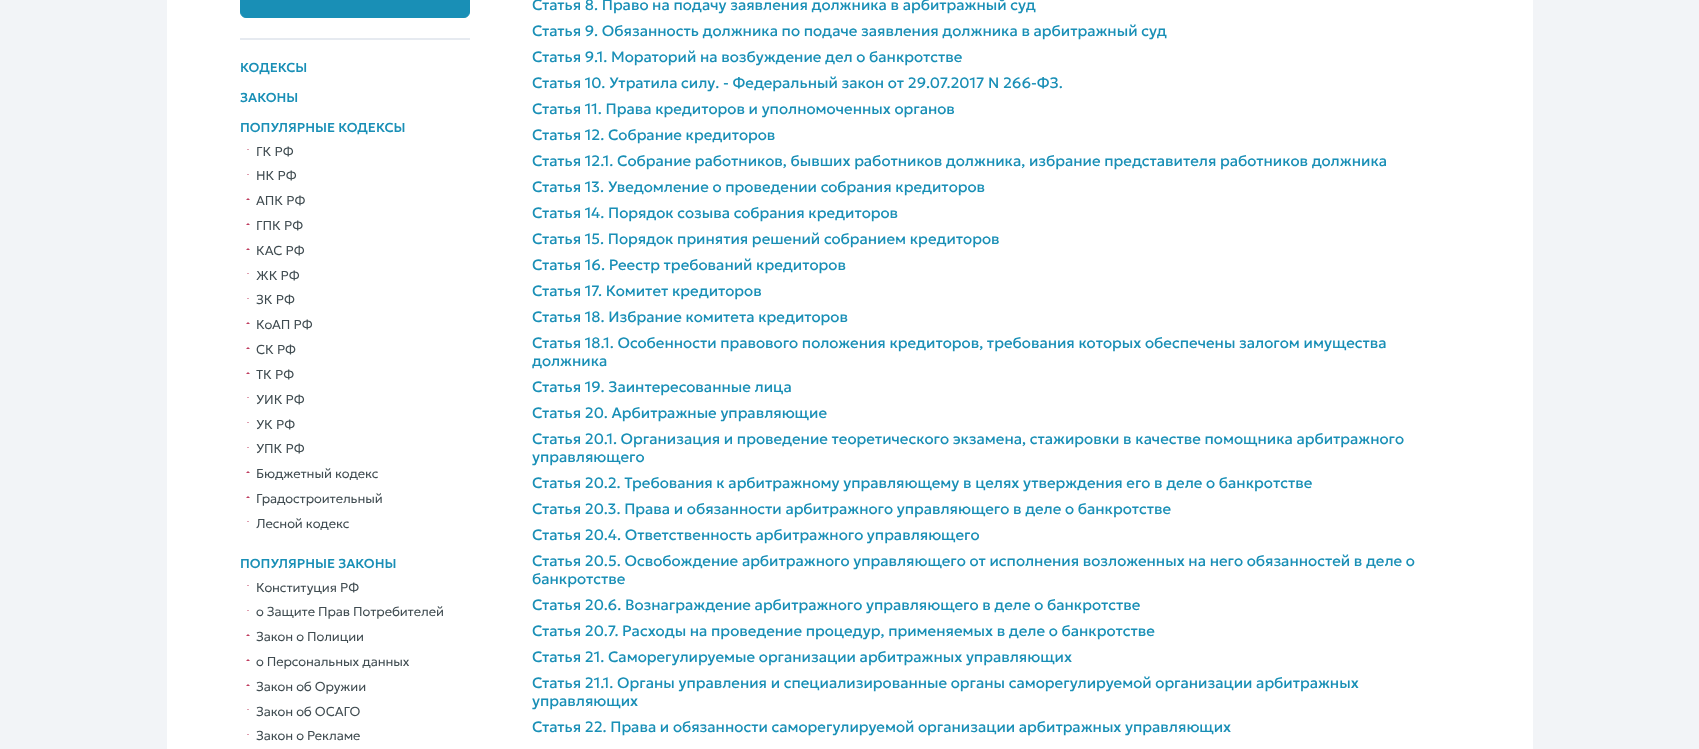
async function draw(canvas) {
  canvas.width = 1699
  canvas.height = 749
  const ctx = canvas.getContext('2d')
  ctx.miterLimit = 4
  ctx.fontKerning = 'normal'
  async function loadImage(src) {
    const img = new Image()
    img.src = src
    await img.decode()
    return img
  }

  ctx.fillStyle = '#f2f4f7'
  ctx.fillRect(0, 0, 1699, 749)
  ctx.fillStyle = '#fff'
  ctx.fillRect(167, 0, 1366, 749)
  ctx.fillStyle = '#e6eaf0'
  ctx.fillRect(240, 38, 230, 2)
  ctx.fillStyle = '#198fb6'
  ctx.beginPath()
  ctx.roundRect(240.5, -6.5, 229, 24, 5.5)
  ctx.fill()
  ctx.strokeStyle = '#198fb6'
  ctx.stroke()
  ctx.font = '500 13px Geologica'
  ctx.fillText('КОДЕКСЫ', 240, 72)
  ctx.fillText('ЗАКОНЫ', 240, 102)
  ctx.fillText('ПОПУЛЯРНЫЕ КОДЕКСЫ', 240, 132)
  ctx.fillStyle = '#df9eaf'
  ctx.fillRect(247, 149, 2, 1)
  ctx.letterSpacing = '-0.1px'
  ctx.font = '300 13px Geologica'
  ctx.fillStyle = '#404c51'
  ctx.fillText('ГК РФ', 256, 156)
  ctx.fillStyle = '#df9eaf'
  ctx.fillRect(247, 174, 2, 1)
  ctx.fillStyle = '#404c51'
  ctx.fillText('НК РФ', 256, 180)
  ctx.drawImage(await loadImage('image0.png'), 246, 198, 4, 2)
  ctx.fillText('АПК РФ', 256, 205)
  ctx.drawImage(await loadImage('image0.png'), 246, 223, 4, 2)
  ctx.fillText('ГПК РФ', 256, 230)
  ctx.drawImage(await loadImage('image0.png'), 246, 248, 4, 2)
  ctx.fillText('КАС РФ', 256, 255)
  ctx.fillStyle = '#df9eaf'
  ctx.fillRect(247, 273, 2, 1)
  ctx.fillStyle = '#404c51'
  ctx.fillText('ЖК РФ', 256, 280)
  ctx.fillStyle = '#df9eaf'
  ctx.fillRect(247, 298, 2, 1)
  ctx.fillStyle = '#404c51'
  ctx.fillText('ЗК РФ', 256, 304)
  ctx.drawImage(await loadImage('image0.png'), 246, 322, 4, 2)
  ctx.fillText('КоАП РФ', 256, 329)
  ctx.drawImage(await loadImage('image0.png'), 246, 347, 4, 2)
  ctx.fillText('СК РФ', 256, 354)
  ctx.drawImage(await loadImage('image0.png'), 246, 372, 4, 2)
  ctx.fillText('ТК РФ', 256, 379)
  ctx.fillStyle = '#df9eaf'
  ctx.fillRect(247, 397, 2, 1)
  ctx.fillStyle = '#404c51'
  ctx.fillText('УИК РФ', 256, 404)
  ctx.fillStyle = '#df9eaf'
  ctx.fillRect(247, 422, 2, 1)
  ctx.fillStyle = '#404c51'
  ctx.fillText('УК РФ', 256, 429)
  ctx.fillStyle = '#df9eaf'
  ctx.fillRect(247, 447, 2, 1)
  ctx.fillStyle = '#404c51'
  ctx.fillText('УПК РФ', 256, 453)
  ctx.drawImage(await loadImage('image0.png'), 246, 471, 4, 2)
  ctx.fillText('Бюджетный кодекс', 256, 478)
  ctx.drawImage(await loadImage('image0.png'), 246, 496, 4, 2)
  ctx.fillText('Градостроительный', 256, 503)
  ctx.fillStyle = '#df9eaf'
  ctx.fillRect(247, 521, 2, 1)
  ctx.fillStyle = '#404c51'
  ctx.fillText('Лесной кодекс', 256, 528)
  ctx.letterSpacing = '0px'
  ctx.font = '500 13px Geologica'
  ctx.fillStyle = '#198fb6'
  ctx.fillText('ПОПУЛЯРНЫЕ ЗАКОНЫ', 240, 568)
  ctx.fillStyle = '#df9eaf'
  ctx.fillRect(247, 585, 2, 1)
  ctx.letterSpacing = '-0.1px'
  ctx.font = '300 13px Geologica'
  ctx.fillStyle = '#404c51'
  ctx.fillText('Конституция РФ', 256, 592)
  ctx.fillStyle = '#df9eaf'
  ctx.fillRect(247, 610, 2, 1)
  ctx.fillStyle = '#404c51'
  ctx.fillText('о Защите Прав Потребителей', 256, 616)
  ctx.drawImage(await loadImage('image0.png'), 246, 634, 4, 2)
  ctx.fillText('Закон о Полиции', 256, 641)
  ctx.drawImage(await loadImage('image0.png'), 246, 659, 4, 2)
  ctx.fillText('о Персональных данных', 256, 666)
  ctx.drawImage(await loadImage('image0.png'), 246, 684, 4, 2)
  ctx.fillText('Закон об Оружии', 256, 691)
  ctx.fillStyle = '#df9eaf'
  ctx.fillRect(247, 709, 2, 1)
  ctx.fillStyle = '#404c51'
  ctx.fillText('Закон об ОСАГО', 256, 716)
  ctx.fillStyle = '#df9eaf'
  ctx.fillRect(247, 734, 2, 1)
  ctx.fillStyle = '#404c51'
  ctx.fillText('Закон о Рекламе', 256, 740)
  ctx.letterSpacing = '0px'
  ctx.font = '15px Geologica'
  ctx.fillStyle = '#198fb6'
  ctx.fillText('Статья 8. Право на подачу заявления должника в арбитражный суд', 532, 10)
  ctx.fillText('Статья 9. Обязанность должника по подаче заявления должника в арбитражный суд', 532, 36)
  ctx.fillText('Статья 9.1. Мораторий на возбуждение дел о банкротстве', 532, 62)
  ctx.fillText('Статья 10. Утратила силу. - Федеральный закон от 29.07.2017 N 266-ФЗ.', 532, 88)
  ctx.fillText('Статья 11. Права кредиторов и уполномоченных органов', 532, 114)
  ctx.fillText('Статья 12. Собрание кредиторов', 532, 140)
  ctx.fillText('Статья 12.1. Собрание работников, бывших работников должника, избрание представителя работников должника', 532, 166)
  ctx.fillText('Статья 13. Уведомление о проведении собрания кредиторов', 532, 192)
  ctx.fillText('Статья 14. Порядок созыва собрания кредиторов', 532, 218)
  ctx.fillText('Статья 15. Порядок принятия решений собранием кредиторов', 532, 244)
  ctx.fillText('Статья 16. Реестр требований кредиторов', 532, 270)
  ctx.fillText('Статья 17. Комитет кредиторов', 532, 296)
  ctx.fillText('Статья 18. Избрание комитета кредиторов', 532, 322)
  ctx.fillText('Статья 18.1. Особенности правового положения кредиторов, требования которых обеспечены залогом имущества', 532, 348)
  ctx.fillText('должника', 532, 366)
  ctx.fillText('Статья 19. Заинтересованные лица', 532, 392)
  ctx.fillText('Статья 20. Арбитражные управляющие', 532, 418)
  ctx.fillText('Статья 20.1. Организация и проведение теоретического экзамена, стажировки в качестве помощника арбитражного', 532, 444)
  ctx.fillText('управляющего', 532, 462)
  ctx.fillText('Статья 20.2. Требования к арбитражному управляющему в целях утверждения его в деле о банкротстве', 532, 488)
  ctx.fillText('Статья 20.3. Права и обязанности арбитражного управляющего в деле о банкротстве', 532, 514)
  ctx.fillText('Статья 20.4. Ответственность арбитражного управляющего', 532, 540)
  ctx.fillText('Статья 20.5. Освобождение арбитражного управляющего от исполнения возложенных на него обязанностей в деле о', 532, 566)
  ctx.fillText('банкротстве', 532, 584)
  ctx.fillText('Статья 20.6. Вознаграждение арбитражного управляющего в деле о банкротстве', 532, 610)
  ctx.fillText('Статья 20.7. Расходы на проведение процедур, применяемых в деле о банкротстве', 532, 636)
  ctx.fillText('Статья 21. Саморегулируемые организации арбитражных управляющих', 532, 662)
  ctx.fillText('Статья 21.1. Органы управления и специализированные органы саморегулируемой организации арбитражных', 532, 688)
  ctx.fillText('управляющих', 532, 706)
  ctx.fillText('Статья 22. Права и обязанности саморегулируемой организации арбитражных управляющих', 532, 732)
}

draw(document.querySelector('canvas'))
